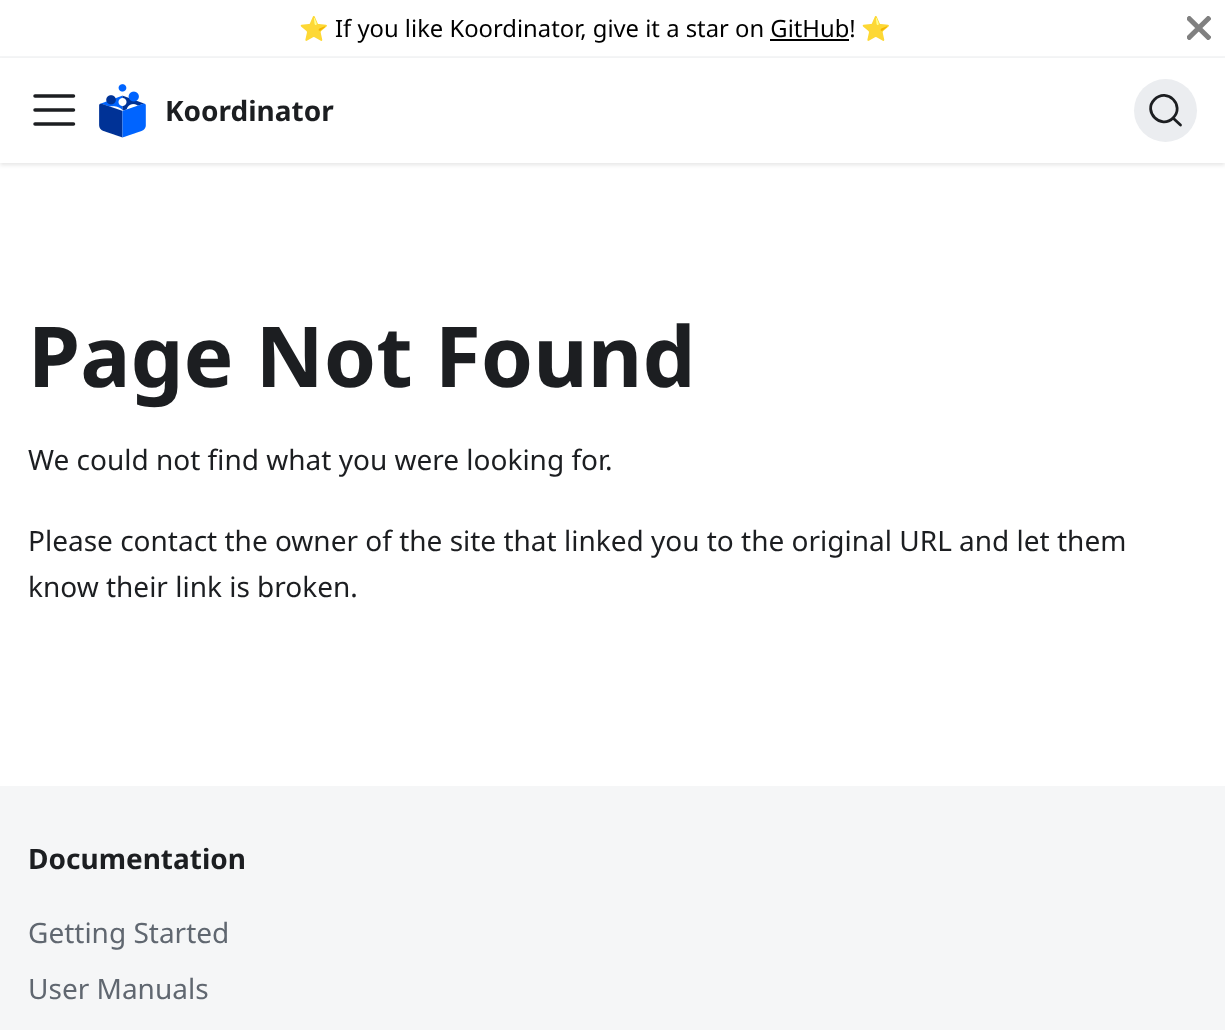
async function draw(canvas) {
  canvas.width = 1225
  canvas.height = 1030
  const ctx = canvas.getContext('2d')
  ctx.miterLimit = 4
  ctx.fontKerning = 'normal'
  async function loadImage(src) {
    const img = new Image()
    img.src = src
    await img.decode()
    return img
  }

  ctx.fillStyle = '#fff'
  ctx.fillRect(0, 0, 1225, 1030)
  ctx.fillStyle = '#f5f6f7'
  ctx.fillRect(0, 56, 1225, 2)
  ctx.font = '23.8px Noto Color Emoji'
  ctx.fillStyle = '#000'
  ctx.fillText('⭐️', 299, 37)
  ctx.font = '23.8px Noto Sans'
  ctx.fillText('If you like Koordinator, give it a star on GitHub!', 335, 37)
  ctx.font = '23.8px Noto Color Emoji'
  ctx.fillText('⭐️', 861, 37)
  ctx.fillRect(770, 39, 79, 2)
  ctx.save()
  ctx.beginPath()
  ctx.rect(1187, 16, 24, 24)
  ctx.clip()
  ctx.beginPath()
  ctx.moveTo(1187.5, 17)
  ctx.lineTo(1210, 39)
  ctx.moveTo(1210, 17)
  ctx.lineTo(1187.5, 39)
  ctx.strokeStyle = '#808080'
  ctx.lineWidth = 5.1
  ctx.stroke()
  ctx.restore()
  ctx.fillStyle = '#0000001a'
  ctx.filter = 'blur(2px)'
  ctx.beginPath()
  ctx.rect(0, 60, 1225, 105)
  ctx.fill()
  ctx.filter = 'none'
  ctx.fillStyle = '#fff'
  ctx.fillRect(0, 58, 1225, 105)
  ctx.beginPath()
  ctx.moveTo(35, 96)
  ctx.lineTo(73.5, 96)
  ctx.moveTo(35, 110)
  ctx.lineTo(73.5, 110)
  ctx.moveTo(35, 124)
  ctx.lineTo(73.5, 124)
  ctx.strokeStyle = '#1c1e21'
  ctx.lineWidth = 3.5
  ctx.lineCap = 'round'
  ctx.stroke()
  ctx.drawImage(await loadImage('image0.png'), 99, 84, 47, 54)
  ctx.font = 'bold 28px Noto Sans'
  ctx.fillStyle = '#1c1e21'
  ctx.fillText('Koordinator', 165, 121)
  ctx.fillStyle = '#ebedf0'
  ctx.beginPath()
  ctx.arc(1165.5, 110.5, 31.5, 0, 2 * Math.PI)
  ctx.fill()
  ctx.beginPath()
  ctx.moveTo(1173, 118)
  ctx.lineTo(1180.5, 125)
  ctx.lineTo(1173, 118)
  ctx.bezierCurveTo(1161, 130, 1142.5, 111.5, 1154.5, 99.5)
  ctx.bezierCurveTo(1167, 87, 1185.5, 105.5, 1173, 118)
  ctx.closePath()
  ctx.lineWidth = 2.8
  ctx.lineJoin = 'round'
  ctx.stroke()
  ctx.font = 'bold 84px Noto Sans'
  ctx.fillStyle = '#1c1e21'
  ctx.fillText('Page Not Found', 28, 387)
  ctx.font = '28px Noto Sans'
  ctx.fillText('We could not find what you were looking for.', 28, 470)
  ctx.fillText('Please contact the owner of the site that linked you to the original URL and let them', 28, 551)
  ctx.fillText('know their link is broken.', 28, 597)
  ctx.fillStyle = '#f5f6f7'
  ctx.fillRect(0, 786, 1225, 244)
  ctx.font = 'bold 28px Noto Sans'
  ctx.fillStyle = '#1c1e21'
  ctx.fillText('Documentation', 28, 869)
  ctx.font = '28px Noto Sans'
  ctx.fillStyle = '#606770'
  ctx.fillText('Getting Started', 28, 943)
  ctx.fillText('User Manuals', 28, 999)
}

draw(document.querySelector('canvas'))
